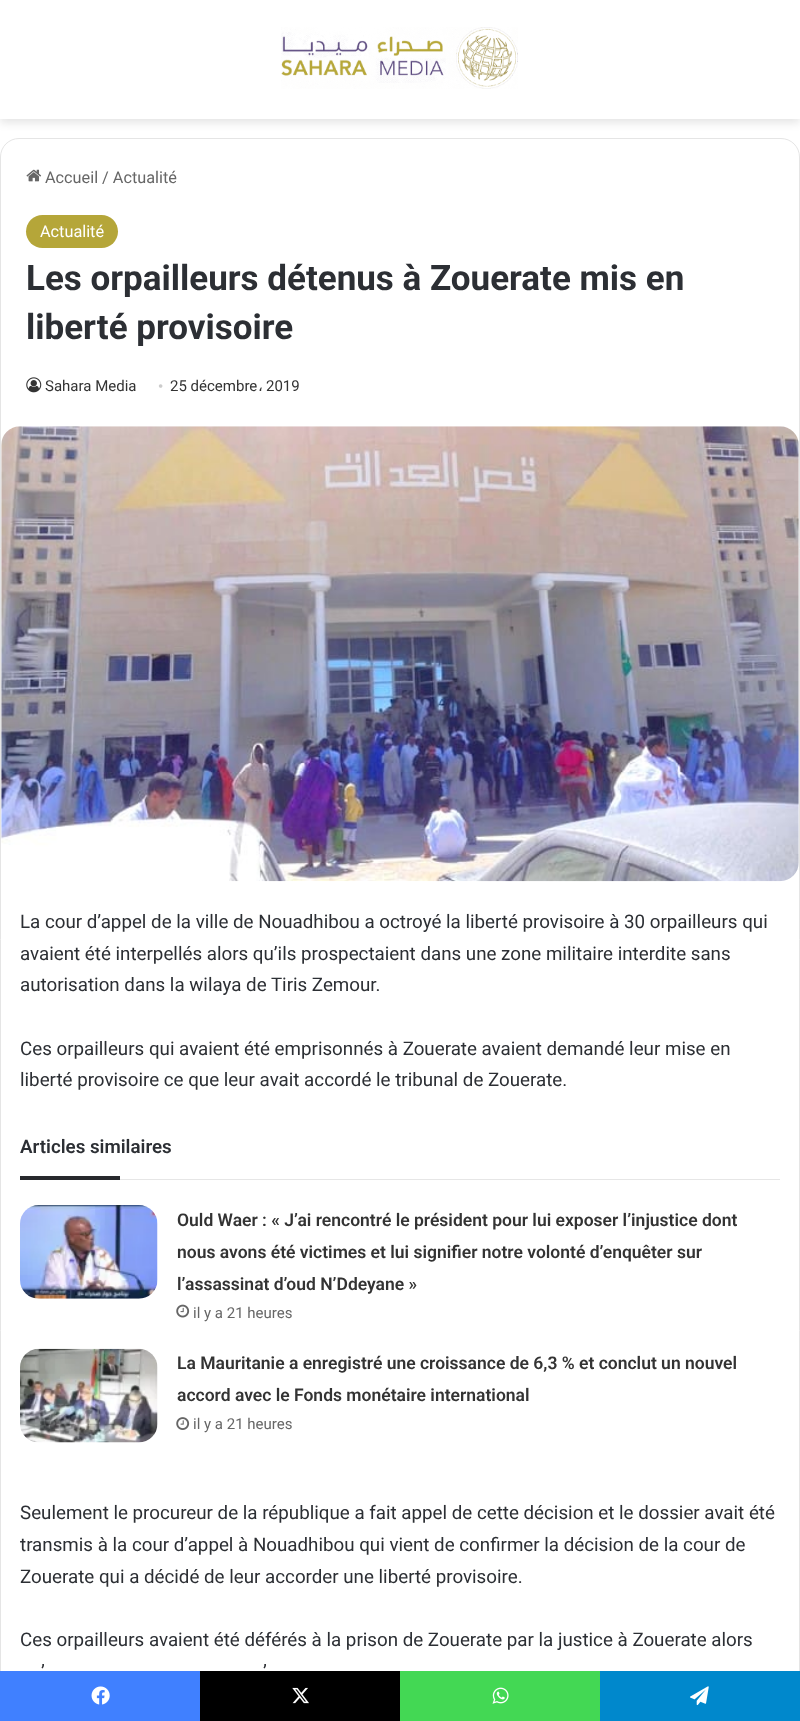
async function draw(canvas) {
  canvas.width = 800
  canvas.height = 1721
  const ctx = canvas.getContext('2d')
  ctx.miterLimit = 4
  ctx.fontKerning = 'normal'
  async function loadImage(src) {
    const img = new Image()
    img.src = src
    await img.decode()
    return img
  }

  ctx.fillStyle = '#fff'
  ctx.fillRect(0, 0, 800, 1721)
  ctx.fillStyle = '#0000001a'
  ctx.filter = 'blur(4.5px)'
  ctx.beginPath()
  ctx.rect(0, 4, 800, 119)
  ctx.fill()
  ctx.filter = 'none'
  ctx.fillStyle = '#fff'
  ctx.fillRect(0, 0, 800, 119)
  ctx.drawImage(await loadImage('image0.png'), 281, 27, 237, 62)
  ctx.beginPath()
  ctx.roundRect(0.5, 138.5, 799, 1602, 18.5)
  ctx.strokeStyle = '#e5e5e5'
  ctx.stroke()
  ctx.drawImage(await loadImage('image1.png'), 26, 169, 16, 13)
  ctx.font = '16.25px Roboto'
  ctx.fillStyle = '#666'
  ctx.fillText('Accueil / Actualité', 45, 183)
  ctx.fillStyle = '#b5a639'
  ctx.beginPath()
  ctx.roundRect(26, 215, 92, 33, 16.5)
  ctx.fill()
  ctx.fillStyle = '#fff'
  ctx.fillText('Actualité', 40, 237)
  ctx.font = 'bold 35px Roboto'
  ctx.fillStyle = '#2c2f34'
  ctx.fillText('Les orpailleurs détenus à Zouerate mis en', 26, 290)
  ctx.fillText('liberté provisoire', 26, 339)
  ctx.drawImage(await loadImage('image2.png'), 26, 377, 16, 16)
  ctx.font = '15px Roboto'
  ctx.fillStyle = '#333'
  ctx.fillText('Sahara Media', 45, 391)
  ctx.font = '15px Liberation Serif'
  ctx.fillStyle = '#ccc'
  ctx.fillText('•', 158, 391)
  ctx.font = '15px Roboto'
  ctx.fillStyle = '#333'
  ctx.fillText('25 décembre', 170, 391)
  ctx.fillText('2019', 266, 391)
  ctx.font = '15px DejaVu Sans'
  ctx.fillText('،', 258, 391)
  ctx.drawImage(await loadImage('image3.png'), 1, 426, 798, 456)
  ctx.font = '18.75px Roboto'
  ctx.fillStyle = '#2c2f34'
  ctx.fillText('La cour d’appel de la ville de Nouadhibou a octroyé la liberté provisoire à 30 orpailleurs qui', 20, 928)
  ctx.fillText('avaient été interpellés alors qu’ils prospectaient dans une zone militaire interdite sans', 20, 960)
  ctx.fillText('autorisation dans la wilaya de Tiris Zemour.', 20, 991)
  ctx.fillText('Ces orpailleurs qui avaient été emprisonnés à Zouerate avaient demandé leur mise en', 20, 1055)
  ctx.fillText('liberté provisoire ce que leur avait accordé le tribunal de Zouerate.', 20, 1086)
  ctx.fillStyle = '#e6e6e6'
  ctx.fillRect(120, 1179, 660, 1)
  ctx.font = '600 18.75px Roboto'
  ctx.fillStyle = '#2c2f34'
  ctx.fillText('Articles similaires', 20, 1153)
  ctx.fillStyle = '#27292d'
  ctx.fillRect(20, 1176, 100, 4)
  ctx.drawImage(await loadImage('image4.png'), 20, 1205, 138, 94)
  ctx.font = '600 17.5px Roboto'
  ctx.fillStyle = '#333'
  ctx.fillText('Ould Waer : « J’ai rencontré le président pour lui exposer l’injustice dont', 177, 1226)
  ctx.fillText('nous avons été victimes et lui signifier notre volonté d’enquêter sur', 177, 1258)
  ctx.fillText('l’assassinat d’oud N’Ddeyane »', 177, 1290)
  ctx.drawImage(await loadImage('image5.png'), 176, 1304, 14, 14)
  ctx.font = '15px Roboto'
  ctx.fillStyle = '#666'
  ctx.fillText('il y a 21 heures', 193, 1318)
  ctx.drawImage(await loadImage('image6.png'), 20, 1348, 138, 95)
  ctx.font = '600 17.5px Roboto'
  ctx.fillStyle = '#333'
  ctx.fillText('La Mauritanie a enregistré une croissance de 6,3 % et conclut un nouvel', 177, 1369)
  ctx.fillText('accord avec le Fonds monétaire international', 177, 1401)
  ctx.drawImage(await loadImage('image7.png'), 176, 1417, 14, 13)
  ctx.font = '15px Roboto'
  ctx.fillStyle = '#666'
  ctx.fillText('il y a 21 heures', 193, 1429)
  ctx.font = '18.75px Roboto'
  ctx.fillStyle = '#2c2f34'
  ctx.fillText('Seulement le procureur de la république a fait appel de cette décision et le dossier avait été', 20, 1519)
  ctx.fillText('transmis à la cour d’appel à Nouadhibou qui vient de confirmer la décision de la cour de', 20, 1551)
  ctx.fillText('Zouerate qui a décidé de leur accorder une liberté provisoire.', 20, 1583)
  ctx.fillText('Ces orpailleurs avaient été déférés à la prison de Zouerate par la justice à Zouerate alors', 20, 1646)
  ctx.fillText('’', 41, 1678)
  ctx.fillText('’', 263, 1678)
  ctx.fillStyle = '#4080ff'
  ctx.fillRect(0, 1671, 200, 50)
  ctx.drawImage(await loadImage('image8.png'), 91, 1686, 19, 19)
  ctx.fillStyle = '#000'
  ctx.fillRect(200, 1671, 200, 50)
  ctx.drawImage(await loadImage('image9.png'), 292, 1687, 17, 17)
  ctx.fillStyle = '#43d854'
  ctx.fillRect(400, 1671, 200, 50)
  ctx.drawImage(await loadImage('image10.png'), 492, 1687, 17, 17)
  ctx.fillStyle = '#08c'
  ctx.fillRect(600, 1671, 200, 50)
  ctx.drawImage(await loadImage('image11.png'), 690, 1686, 19, 20)
}

draw(document.querySelector('canvas'))
